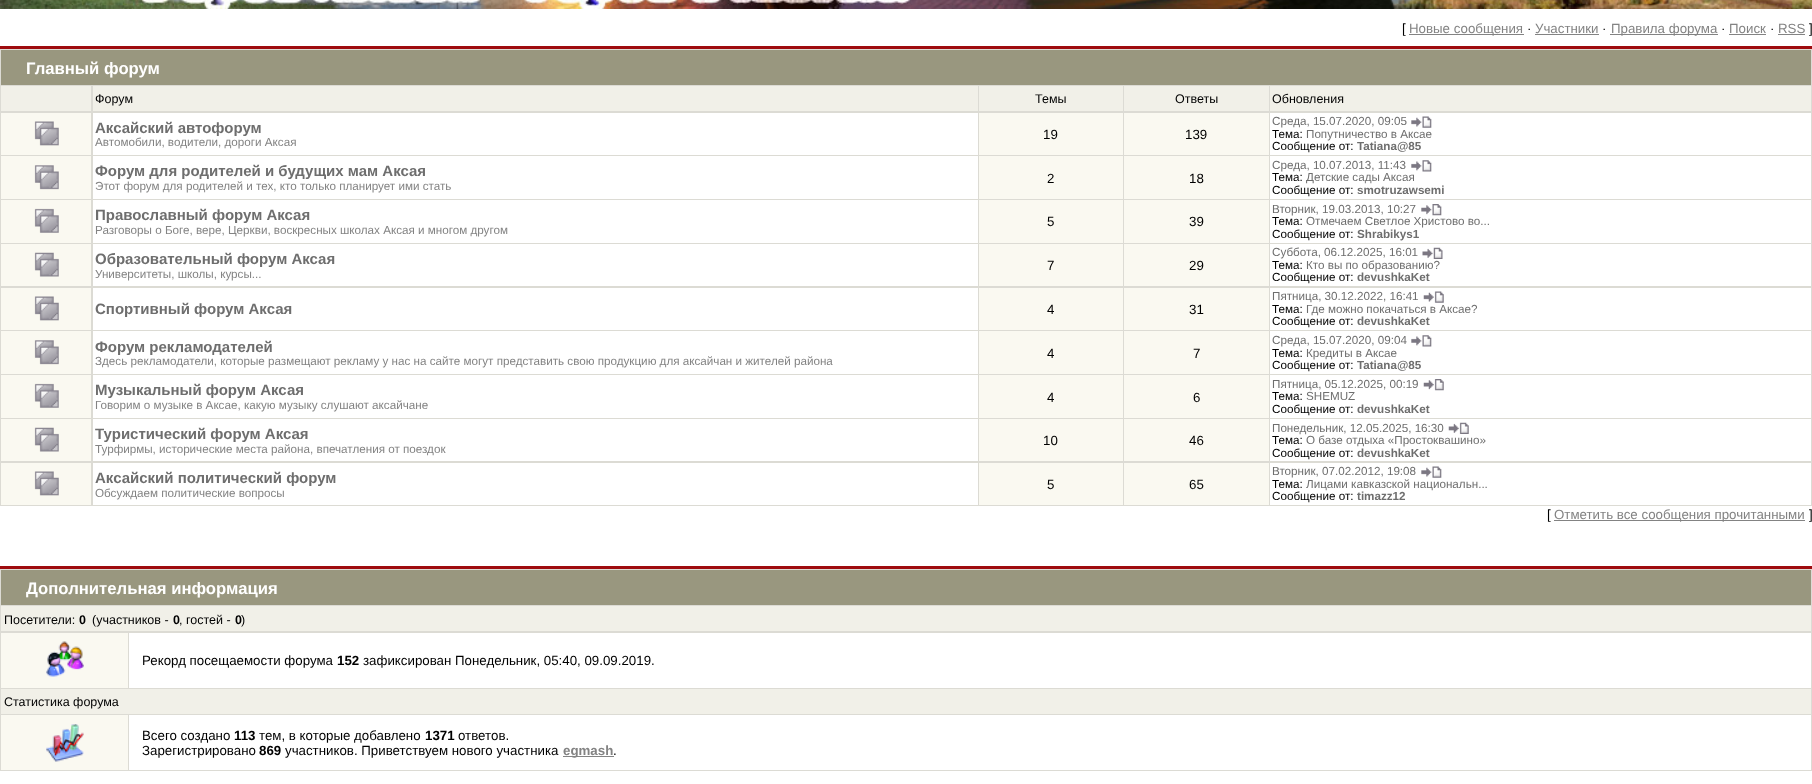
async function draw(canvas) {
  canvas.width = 1812
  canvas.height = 784
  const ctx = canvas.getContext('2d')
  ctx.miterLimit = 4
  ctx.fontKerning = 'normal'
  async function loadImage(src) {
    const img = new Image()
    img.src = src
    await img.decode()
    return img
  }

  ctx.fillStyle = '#fff'
  ctx.fillRect(0, 0, 1812, 784)
  ctx.drawImage(await loadImage('image0.png'), 0, 0, 1812, 9)
  ctx.font = '13.3px Liberation Sans'
  ctx.fillStyle = '#000'
  ctx.fillText('[', 1402, 33)
  ctx.fillStyle = '#838383'
  ctx.fillRect(1409, 34, 115, 1)
  ctx.fillText('Новые сообщения', 1409, 33)
  ctx.fillStyle = '#000'
  ctx.fillText('·', 1527, 33)
  ctx.fillStyle = '#838383'
  ctx.fillText('Участники', 1535, 33)
  ctx.fillRect(1535, 34, 64, 1)
  ctx.fillStyle = '#000'
  ctx.fillText('·', 1602, 33)
  ctx.fillStyle = '#838383'
  ctx.fillRect(1610, 34, 108, 1)
  ctx.fillText('Правила форума', 1611, 33)
  ctx.fillStyle = '#000'
  ctx.fillText('·', 1721, 33)
  ctx.fillStyle = '#838383'
  ctx.fillText('Поиск', 1729, 33)
  ctx.fillRect(1729, 34, 37, 1)
  ctx.fillStyle = '#000'
  ctx.fillText('·', 1770, 33)
  ctx.fillStyle = '#838383'
  ctx.fillText('RSS', 1778, 33)
  ctx.fillRect(1778, 34, 27, 1)
  ctx.fillStyle = '#000'
  ctx.fillText(']', 1809, 33)
  ctx.fillStyle = '#dcdbd4'
  ctx.fillRect(0, 49, 1812, 457)
  ctx.fillStyle = '#9e0b0f'
  ctx.fillRect(0, 46, 1812, 3)
  ctx.fillStyle = '#99977f'
  ctx.fillRect(1, 50, 1810, 35)
  ctx.font = 'bold 16.7px Liberation Sans'
  ctx.fillStyle = '#fff'
  ctx.fillText('Главный форум', 26, 74)
  ctx.fillStyle = '#f1f0e8'
  ctx.fillRect(1, 86, 90, 25)
  ctx.fillRect(93, 86, 885, 25)
  ctx.font = '12.5px Liberation Sans'
  ctx.fillStyle = '#000'
  ctx.fillText('Форум', 95, 103)
  ctx.fillStyle = '#f1f0e8'
  ctx.fillRect(979, 86, 144, 25)
  ctx.fillStyle = '#000'
  ctx.fillText('Темы', 1035, 103)
  ctx.fillStyle = '#f1f0e8'
  ctx.fillRect(1124, 86, 145, 25)
  ctx.fillStyle = '#000'
  ctx.fillText('Ответы', 1175, 103)
  ctx.fillStyle = '#f1f0e8'
  ctx.fillRect(1270, 86, 541, 25)
  ctx.fillStyle = '#000'
  ctx.fillText('Обновления', 1272, 103)
  ctx.fillStyle = '#faf9f1'
  ctx.fillRect(1, 113, 90, 42)
  ctx.drawImage(await loadImage('image1.png'), 34, 121, 25, 25)
  ctx.fillStyle = '#fff'
  ctx.fillRect(93, 113, 885, 42)
  ctx.font = 'bold 15px Liberation Sans'
  ctx.fillStyle = '#6e6e6e'
  ctx.fillText('Аксайский автофорум', 95, 133)
  ctx.font = '11.67px Liberation Sans'
  ctx.fillStyle = '#838383'
  ctx.fillText('Автомобили, водители, дороги Аксая', 95, 146)
  ctx.fillStyle = '#faf9f1'
  ctx.fillRect(979, 113, 144, 42)
  ctx.font = '13.3px Liberation Sans'
  ctx.fillStyle = '#000'
  ctx.fillText('19', 1043, 139)
  ctx.fillStyle = '#faf9f1'
  ctx.fillRect(1124, 113, 145, 42)
  ctx.fillStyle = '#000'
  ctx.fillText('139', 1185, 139)
  ctx.fillStyle = '#fff'
  ctx.fillRect(1270, 113, 541, 42)
  ctx.font = '11.67px Liberation Sans'
  ctx.fillStyle = '#6e6e6e'
  ctx.fillText('Среда, 15.07.2020, 09:05', 1272, 125)
  ctx.drawImage(await loadImage('image2.png'), 1411, 116, 21, 12)
  ctx.fillStyle = '#000'
  ctx.fillText('Тема:', 1272, 138)
  ctx.fillStyle = '#6e6e6e'
  ctx.fillText('Попутничество в Аксае', 1306, 138)
  ctx.fillStyle = '#000'
  ctx.fillText('Сообщение от:', 1272, 150)
  ctx.font = 'bold 11.67px Liberation Sans'
  ctx.fillStyle = '#6e6e6e'
  ctx.fillText('Tatiana@85', 1357, 150)
  ctx.fillStyle = '#faf9f1'
  ctx.fillRect(1, 156, 90, 43)
  ctx.drawImage(await loadImage('image3.png'), 34, 165, 25, 25)
  ctx.fillStyle = '#fff'
  ctx.fillRect(93, 156, 885, 43)
  ctx.font = 'bold 15px Liberation Sans'
  ctx.fillStyle = '#6e6e6e'
  ctx.fillText('Форум для родителей и будущих мам Аксая', 95, 176)
  ctx.font = '11.67px Liberation Sans'
  ctx.fillStyle = '#838383'
  ctx.fillText('Этот форум для родителей и тех, кто только планирует ими стать', 95, 190)
  ctx.fillStyle = '#faf9f1'
  ctx.fillRect(979, 156, 144, 43)
  ctx.font = '13.3px Liberation Sans'
  ctx.fillStyle = '#000'
  ctx.fillText('2', 1047, 183)
  ctx.fillStyle = '#faf9f1'
  ctx.fillRect(1124, 156, 145, 43)
  ctx.fillStyle = '#000'
  ctx.fillText('18', 1189, 183)
  ctx.fillStyle = '#fff'
  ctx.fillRect(1270, 156, 541, 43)
  ctx.font = '11.67px Liberation Sans'
  ctx.fillStyle = '#6e6e6e'
  ctx.fillText('Среда, 10.07.2013, 11:43', 1272, 169)
  ctx.drawImage(await loadImage('image4.png'), 1411, 160, 21, 12)
  ctx.fillStyle = '#000'
  ctx.fillText('Тема:', 1272, 181)
  ctx.fillStyle = '#6e6e6e'
  ctx.fillText('Детские сады Аксая', 1306, 181)
  ctx.fillStyle = '#000'
  ctx.fillText('Сообщение от:', 1272, 194)
  ctx.font = 'bold 11.67px Liberation Sans'
  ctx.fillStyle = '#6e6e6e'
  ctx.fillText('smotruzawsemi', 1357, 194)
  ctx.fillStyle = '#faf9f1'
  ctx.fillRect(1, 200, 90, 43)
  ctx.drawImage(await loadImage('image5.png'), 34, 208, 25, 25)
  ctx.fillStyle = '#fff'
  ctx.fillRect(93, 200, 885, 43)
  ctx.font = 'bold 15px Liberation Sans'
  ctx.fillStyle = '#6e6e6e'
  ctx.fillText('Православный форум Аксая', 95, 220)
  ctx.font = '11.67px Liberation Sans'
  ctx.fillStyle = '#838383'
  ctx.fillText('Разговоры о Боге, вере, Церкви, воскресных школах Аксая и многом другом', 95, 234)
  ctx.fillStyle = '#faf9f1'
  ctx.fillRect(979, 200, 144, 43)
  ctx.font = '13.3px Liberation Sans'
  ctx.fillStyle = '#000'
  ctx.fillText('5', 1047, 226)
  ctx.fillStyle = '#faf9f1'
  ctx.fillRect(1124, 200, 145, 43)
  ctx.fillStyle = '#000'
  ctx.fillText('39', 1189, 226)
  ctx.fillStyle = '#fff'
  ctx.fillRect(1270, 200, 541, 43)
  ctx.font = '11.67px Liberation Sans'
  ctx.fillStyle = '#6e6e6e'
  ctx.fillText('Вторник, 19.03.2013, 10:27', 1272, 213)
  ctx.drawImage(await loadImage('image6.png'), 1421, 204, 21, 12)
  ctx.fillStyle = '#000'
  ctx.fillText('Тема:', 1272, 225)
  ctx.fillStyle = '#6e6e6e'
  ctx.fillText('Отмечаем Светлое Христово во...', 1306, 225)
  ctx.fillStyle = '#000'
  ctx.fillText('Сообщение от:', 1272, 238)
  ctx.font = 'bold 11.67px Liberation Sans'
  ctx.fillStyle = '#6e6e6e'
  ctx.fillText('Shrabikys1', 1357, 238)
  ctx.fillStyle = '#faf9f1'
  ctx.fillRect(1, 244, 90, 42)
  ctx.drawImage(await loadImage('image7.png'), 34, 252, 25, 25)
  ctx.fillStyle = '#fff'
  ctx.fillRect(93, 244, 885, 42)
  ctx.font = 'bold 15px Liberation Sans'
  ctx.fillStyle = '#6e6e6e'
  ctx.fillText('Образовательный форум Аксая', 95, 264)
  ctx.font = '11.67px Liberation Sans'
  ctx.fillStyle = '#838383'
  ctx.fillText('Университеты, школы, курсы...', 95, 278)
  ctx.fillStyle = '#faf9f1'
  ctx.fillRect(979, 244, 144, 42)
  ctx.font = '13.3px Liberation Sans'
  ctx.fillStyle = '#000'
  ctx.fillText('7', 1047, 270)
  ctx.fillStyle = '#faf9f1'
  ctx.fillRect(1124, 244, 145, 42)
  ctx.fillStyle = '#000'
  ctx.fillText('29', 1189, 270)
  ctx.fillStyle = '#fff'
  ctx.fillRect(1270, 244, 541, 42)
  ctx.font = '11.67px Liberation Sans'
  ctx.fillStyle = '#6e6e6e'
  ctx.fillText('Суббота, 06.12.2025, 16:01', 1272, 256)
  ctx.drawImage(await loadImage('image8.png'), 1422, 247, 21, 12)
  ctx.fillStyle = '#000'
  ctx.fillText('Тема:', 1272, 269)
  ctx.fillStyle = '#6e6e6e'
  ctx.fillText('Кто вы по образованию?', 1306, 269)
  ctx.fillStyle = '#000'
  ctx.fillText('Сообщение от:', 1272, 281)
  ctx.font = 'bold 11.67px Liberation Sans'
  ctx.fillStyle = '#6e6e6e'
  ctx.fillText('devushkaKet', 1357, 281)
  ctx.fillStyle = '#faf9f1'
  ctx.fillRect(1, 288, 90, 42)
  ctx.drawImage(await loadImage('image1.png'), 34, 296, 25, 25)
  ctx.fillStyle = '#fff'
  ctx.fillRect(93, 288, 885, 42)
  ctx.font = 'bold 15px Liberation Sans'
  ctx.fillStyle = '#6e6e6e'
  ctx.fillText('Спортивный форум Аксая', 95, 314)
  ctx.fillStyle = '#faf9f1'
  ctx.fillRect(979, 288, 144, 42)
  ctx.font = '13.3px Liberation Sans'
  ctx.fillStyle = '#000'
  ctx.fillText('4', 1047, 314)
  ctx.fillStyle = '#faf9f1'
  ctx.fillRect(1124, 288, 145, 42)
  ctx.fillStyle = '#000'
  ctx.fillText('31', 1189, 314)
  ctx.fillStyle = '#fff'
  ctx.fillRect(1270, 288, 541, 42)
  ctx.font = '11.67px Liberation Sans'
  ctx.fillStyle = '#6e6e6e'
  ctx.fillText('Пятница, 30.12.2022, 16:41', 1272, 300)
  ctx.drawImage(await loadImage('image9.png'), 1423, 291, 21, 12)
  ctx.fillStyle = '#000'
  ctx.fillText('Тема:', 1272, 313)
  ctx.fillStyle = '#6e6e6e'
  ctx.fillText('Где можно покачаться в Аксае?', 1306, 313)
  ctx.fillStyle = '#000'
  ctx.fillText('Сообщение от:', 1272, 325)
  ctx.font = 'bold 11.67px Liberation Sans'
  ctx.fillStyle = '#6e6e6e'
  ctx.fillText('devushkaKet', 1357, 325)
  ctx.fillStyle = '#faf9f1'
  ctx.fillRect(1, 331, 90, 43)
  ctx.drawImage(await loadImage('image10.png'), 34, 340, 25, 25)
  ctx.fillStyle = '#fff'
  ctx.fillRect(93, 331, 885, 43)
  ctx.font = 'bold 15px Liberation Sans'
  ctx.fillStyle = '#6e6e6e'
  ctx.fillText('Форум рекламодателей', 95, 352)
  ctx.font = '11.67px Liberation Sans'
  ctx.fillStyle = '#838383'
  ctx.fillText('Здесь рекламодатели, которые размещают рекламу у нас на сайте могут представить свою продукцию для аксайчан и жителей района', 95, 365)
  ctx.fillStyle = '#faf9f1'
  ctx.fillRect(979, 331, 144, 43)
  ctx.font = '13.3px Liberation Sans'
  ctx.fillStyle = '#000'
  ctx.fillText('4', 1047, 358)
  ctx.fillStyle = '#faf9f1'
  ctx.fillRect(1124, 331, 145, 43)
  ctx.fillStyle = '#000'
  ctx.fillText('7', 1193, 358)
  ctx.fillStyle = '#fff'
  ctx.fillRect(1270, 331, 541, 43)
  ctx.font = '11.67px Liberation Sans'
  ctx.fillStyle = '#6e6e6e'
  ctx.fillText('Среда, 15.07.2020, 09:04', 1272, 344)
  ctx.drawImage(await loadImage('image4.png'), 1411, 335, 21, 12)
  ctx.fillStyle = '#000'
  ctx.fillText('Тема:', 1272, 357)
  ctx.fillStyle = '#6e6e6e'
  ctx.fillText('Кредиты в Аксае', 1306, 357)
  ctx.fillStyle = '#000'
  ctx.fillText('Сообщение от:', 1272, 369)
  ctx.font = 'bold 11.67px Liberation Sans'
  ctx.fillStyle = '#6e6e6e'
  ctx.fillText('Tatiana@85', 1357, 369)
  ctx.fillStyle = '#faf9f1'
  ctx.fillRect(1, 375, 90, 43)
  ctx.drawImage(await loadImage('image5.png'), 34, 383, 25, 25)
  ctx.fillStyle = '#fff'
  ctx.fillRect(93, 375, 885, 43)
  ctx.font = 'bold 15px Liberation Sans'
  ctx.fillStyle = '#6e6e6e'
  ctx.fillText('Музыкальный форум Аксая', 95, 395)
  ctx.font = '11.67px Liberation Sans'
  ctx.fillStyle = '#838383'
  ctx.fillText('Говорим о музыке в Аксае, какую музыку слушают аксайчане', 95, 409)
  ctx.fillStyle = '#faf9f1'
  ctx.fillRect(979, 375, 144, 43)
  ctx.font = '13.3px Liberation Sans'
  ctx.fillStyle = '#000'
  ctx.fillText('4', 1047, 402)
  ctx.fillStyle = '#faf9f1'
  ctx.fillRect(1124, 375, 145, 43)
  ctx.fillStyle = '#000'
  ctx.fillText('6', 1193, 402)
  ctx.fillStyle = '#fff'
  ctx.fillRect(1270, 375, 541, 43)
  ctx.font = '11.67px Liberation Sans'
  ctx.fillStyle = '#6e6e6e'
  ctx.fillText('Пятница, 05.12.2025, 00:19', 1272, 388)
  ctx.drawImage(await loadImage('image11.png'), 1423, 379, 21, 12)
  ctx.fillStyle = '#000'
  ctx.fillText('Тема:', 1272, 400)
  ctx.fillStyle = '#6e6e6e'
  ctx.fillText('SHEMUZ', 1306, 400)
  ctx.fillStyle = '#000'
  ctx.fillText('Сообщение от:', 1272, 413)
  ctx.font = 'bold 11.67px Liberation Sans'
  ctx.fillStyle = '#6e6e6e'
  ctx.fillText('devushkaKet', 1357, 413)
  ctx.fillStyle = '#faf9f1'
  ctx.fillRect(1, 419, 90, 42)
  ctx.drawImage(await loadImage('image7.png'), 34, 427, 25, 25)
  ctx.fillStyle = '#fff'
  ctx.fillRect(93, 419, 885, 42)
  ctx.font = 'bold 15px Liberation Sans'
  ctx.fillStyle = '#6e6e6e'
  ctx.fillText('Туристический форум Аксая', 95, 439)
  ctx.font = '11.67px Liberation Sans'
  ctx.fillStyle = '#838383'
  ctx.fillText('Турфирмы, исторические места района, впечатления от поездок', 95, 453)
  ctx.fillStyle = '#faf9f1'
  ctx.fillRect(979, 419, 144, 42)
  ctx.font = '13.3px Liberation Sans'
  ctx.fillStyle = '#000'
  ctx.fillText('10', 1043, 445)
  ctx.fillStyle = '#faf9f1'
  ctx.fillRect(1124, 419, 145, 42)
  ctx.fillStyle = '#000'
  ctx.fillText('46', 1189, 445)
  ctx.fillStyle = '#fff'
  ctx.fillRect(1270, 419, 541, 42)
  ctx.font = '11.67px Liberation Sans'
  ctx.fillStyle = '#6e6e6e'
  ctx.fillText('Понедельник, 12.05.2025, 16:30', 1272, 432)
  ctx.drawImage(await loadImage('image12.png'), 1448, 422, 21, 12)
  ctx.fillStyle = '#000'
  ctx.fillText('Тема:', 1272, 444)
  ctx.fillStyle = '#6e6e6e'
  ctx.fillText('О базе отдыха «Простоквашино»', 1306, 444)
  ctx.fillStyle = '#000'
  ctx.fillText('Сообщение от:', 1272, 457)
  ctx.font = 'bold 11.67px Liberation Sans'
  ctx.fillStyle = '#6e6e6e'
  ctx.fillText('devushkaKet', 1357, 457)
  ctx.fillStyle = '#faf9f1'
  ctx.fillRect(1, 463, 90, 42)
  ctx.drawImage(await loadImage('image1.png'), 34, 471, 25, 25)
  ctx.fillStyle = '#fff'
  ctx.fillRect(93, 463, 885, 42)
  ctx.font = 'bold 15px Liberation Sans'
  ctx.fillStyle = '#6e6e6e'
  ctx.fillText('Аксайский политический форум', 95, 483)
  ctx.font = '11.67px Liberation Sans'
  ctx.fillStyle = '#838383'
  ctx.fillText('Обсуждаем политические вопросы', 95, 497)
  ctx.fillStyle = '#faf9f1'
  ctx.fillRect(979, 463, 144, 42)
  ctx.font = '13.3px Liberation Sans'
  ctx.fillStyle = '#000'
  ctx.fillText('5', 1047, 489)
  ctx.fillStyle = '#faf9f1'
  ctx.fillRect(1124, 463, 145, 42)
  ctx.fillStyle = '#000'
  ctx.fillText('65', 1189, 489)
  ctx.fillStyle = '#fff'
  ctx.fillRect(1270, 463, 541, 42)
  ctx.font = '11.67px Liberation Sans'
  ctx.fillStyle = '#6e6e6e'
  ctx.fillText('Вторник, 07.02.2012, 19:08', 1272, 475)
  ctx.drawImage(await loadImage('image2.png'), 1421, 466, 21, 12)
  ctx.fillStyle = '#000'
  ctx.fillText('Тема:', 1272, 488)
  ctx.fillStyle = '#6e6e6e'
  ctx.fillText('Лицами кавказской национальн...', 1306, 488)
  ctx.fillStyle = '#000'
  ctx.fillText('Сообщение от:', 1272, 500)
  ctx.font = 'bold 11.67px Liberation Sans'
  ctx.fillStyle = '#6e6e6e'
  ctx.fillText('timazz12', 1357, 500)
  ctx.font = '13.3px Liberation Sans'
  ctx.fillStyle = '#000'
  ctx.fillText('[', 1547, 519)
  ctx.fillStyle = '#838383'
  ctx.fillRect(1554, 520, 251, 1)
  ctx.fillText('Отметить все сообщения прочитанными', 1554, 519)
  ctx.fillStyle = '#000'
  ctx.fillText(']', 1809, 519)
  ctx.fillStyle = '#dcdbd4'
  ctx.fillRect(0, 569, 1812, 202)
  ctx.fillStyle = '#9e0b0f'
  ctx.fillRect(0, 566, 1812, 3)
  ctx.fillStyle = '#99977f'
  ctx.fillRect(1, 570, 1810, 35)
  ctx.font = 'bold 16.7px Liberation Sans'
  ctx.fillStyle = '#fff'
  ctx.fillText('Дополнительная информация', 26, 594)
  ctx.fillStyle = '#f1f0e8'
  ctx.fillRect(1, 606, 1810, 25)
  ctx.font = '12.5px Liberation Sans'
  ctx.fillStyle = '#000'
  ctx.fillText('Посетители:', 4, 624)
  ctx.font = 'bold 12.5px Liberation Sans'
  ctx.fillText('0', 79, 624)
  ctx.font = '12.5px Liberation Sans'
  ctx.fillText('(участников -', 92, 624)
  ctx.font = 'bold 12.5px Liberation Sans'
  ctx.fillText('0', 173, 624)
  ctx.font = '12.5px Liberation Sans'
  ctx.fillText(', гостей -', 179, 624)
  ctx.font = 'bold 12.5px Liberation Sans'
  ctx.fillText('0', 235, 624)
  ctx.font = '12.5px Liberation Sans'
  ctx.fillText(')', 241, 624)
  ctx.fillStyle = '#faf9f1'
  ctx.fillRect(1, 633, 127, 55)
  ctx.drawImage(await loadImage('image13.png'), 46, 641, 38, 36)
  ctx.fillStyle = '#fff'
  ctx.fillRect(129, 633, 1682, 55)
  ctx.font = '13.3px Liberation Sans'
  ctx.fillStyle = '#000'
  ctx.fillText('Рекорд посещаемости форума', 142, 665)
  ctx.font = 'bold 13.3px Liberation Sans'
  ctx.fillText('152', 337, 665)
  ctx.font = '13.3px Liberation Sans'
  ctx.fillText('зафиксирован Понедельник, 05:40, 09.09.2019.', 363, 665)
  ctx.fillStyle = '#f1f0e8'
  ctx.fillRect(1, 689, 1810, 25)
  ctx.font = '12.5px Liberation Sans'
  ctx.fillStyle = '#000'
  ctx.fillText('Статистика форума', 4, 706)
  ctx.fillStyle = '#faf9f1'
  ctx.fillRect(1, 715, 127, 55)
  ctx.drawImage(await loadImage('image14.png'), 46, 724, 38, 38)
  ctx.fillStyle = '#fff'
  ctx.fillRect(129, 715, 1682, 55)
  ctx.font = '13.3px Liberation Sans'
  ctx.fillStyle = '#000'
  ctx.fillText('Всего создано', 142, 740)
  ctx.font = 'bold 13.3px Liberation Sans'
  ctx.fillText('113', 234, 740)
  ctx.font = '13.3px Liberation Sans'
  ctx.fillText('тем, в которые добавлено', 259, 740)
  ctx.font = 'bold 13.3px Liberation Sans'
  ctx.fillText('1371', 425, 740)
  ctx.font = '13.3px Liberation Sans'
  ctx.fillText('ответов.', 458, 740)
  ctx.fillText('Зарегистрировано', 142, 755)
  ctx.font = 'bold 13.3px Liberation Sans'
  ctx.fillText('869', 259, 755)
  ctx.font = '13.3px Liberation Sans'
  ctx.fillText('участников. Приветствуем нового участника', 285, 755)
  ctx.fillStyle = '#838383'
  ctx.fillRect(563, 756, 51, 1)
  ctx.font = 'bold 13.3px Liberation Sans'
  ctx.fillText('egmash', 563, 755)
  ctx.font = '13.3px Liberation Sans'
  ctx.fillStyle = '#000'
  ctx.fillText('.', 613, 755)
}

draw(document.querySelector('canvas'))
